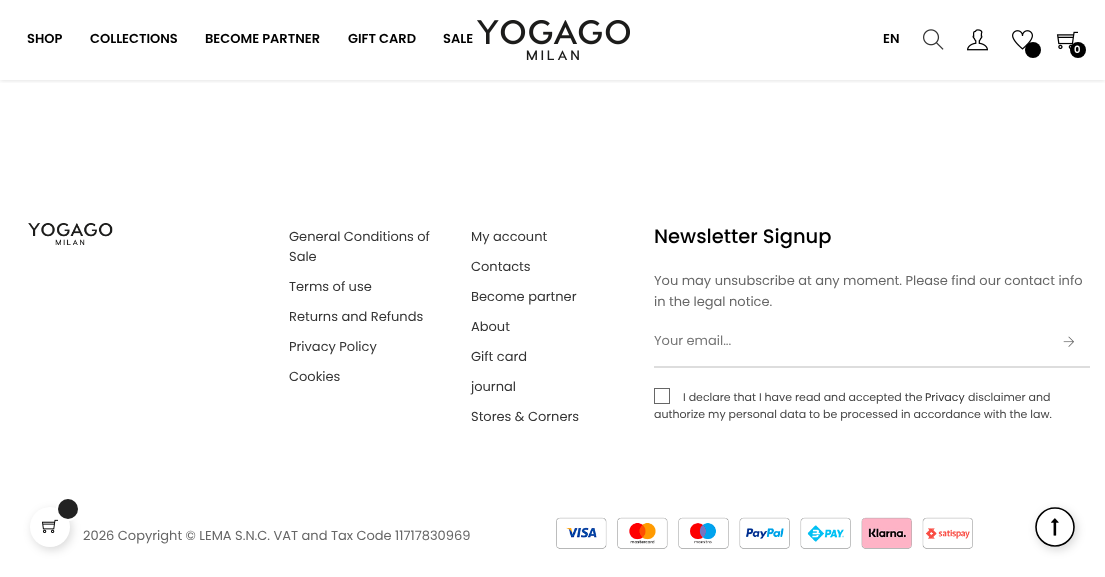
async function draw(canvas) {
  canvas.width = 1105
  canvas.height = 577
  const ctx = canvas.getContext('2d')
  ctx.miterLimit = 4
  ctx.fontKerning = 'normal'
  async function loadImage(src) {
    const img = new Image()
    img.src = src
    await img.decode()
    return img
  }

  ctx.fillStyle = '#fff'
  ctx.fillRect(0, 0, 1105, 577)
  ctx.save()
  ctx.beginPath()
  ctx.rect(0, 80, 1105, 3)
  ctx.clip()
  ctx.fillStyle = '#00000026'
  ctx.filter = 'blur(2.5px)'
  ctx.beginPath()
  ctx.rect(0, 0, 1105, 80)
  ctx.fill()
  ctx.filter = 'none'
  ctx.restore()
  ctx.font = '600 13px Poppins'
  ctx.fillStyle = '#000'
  ctx.fillText('SHOP', 27, 43)
  ctx.fillText('COLLECTIONS', 90, 43)
  ctx.fillText('BECOME PARTNER', 205, 43)
  ctx.fillText('GIFT CARD', 348, 43)
  ctx.fillText('SALE', 443, 43)
  ctx.drawImage(await loadImage('image0.png'), 477, 20, 153, 40)
  ctx.fillText('EN', 883, 43)
  ctx.drawImage(await loadImage('image1.png'), 923, 29, 21, 21)
  ctx.drawImage(await loadImage('image2.png'), 967, 29, 21, 22)
  ctx.drawImage(await loadImage('image3.png'), 1012, 30, 21, 20)
  ctx.beginPath()
  ctx.arc(1033, 50, 8, 0, 2 * Math.PI)
  ctx.fill()
  ctx.drawImage(await loadImage('image4.png'), 1056, 31, 22, 19)
  ctx.beginPath()
  ctx.arc(1078, 50, 8, 0, 2 * Math.PI)
  ctx.fill()
  ctx.font = '600 10px Poppins'
  ctx.fillStyle = '#fff'
  ctx.fillText('0', 1074, 53)
  ctx.drawImage(await loadImage('image5.png'), 28, 223, 85, 22)
  ctx.font = '13px Poppins'
  ctx.fillStyle = '#333'
  ctx.fillText('General Conditions of', 289, 241)
  ctx.fillText('Sale', 289, 261)
  ctx.fillText('Terms of use', 289, 291)
  ctx.fillText('Returns and Refunds', 289, 321)
  ctx.fillText('Privacy Policy', 289, 351)
  ctx.fillText('Cookies', 289, 381)
  ctx.fillText('My account', 471, 241)
  ctx.fillText('Contacts', 471, 271)
  ctx.fillText('Become partner', 471, 301)
  ctx.fillText('About', 471, 331)
  ctx.fillText('Gift card', 471, 361)
  ctx.fillText('journal', 471, 391)
  ctx.fillText('Stores & Corners', 471, 421)
  ctx.font = '500 19.5px Poppins'
  ctx.fillStyle = '#000'
  ctx.fillText('Newsletter Signup', 654, 243)
  ctx.font = '13px Poppins'
  ctx.fillStyle = '#666'
  ctx.fillText('You may unsubscribe at any moment. Please find our contact info', 654, 285)
  ctx.fillText('in the legal notice.', 654, 306)
  ctx.fillStyle = '#ddd'
  ctx.fillRect(654, 366, 436, 2)
  ctx.fillStyle = '#757575'
  ctx.fillText('Your email...', 654, 345)
  ctx.drawImage(await loadImage('image6.png'), 1063, 336, 11, 11)
  ctx.strokeStyle = '#666'
  ctx.strokeRect(654.5, 388.5, 15, 15)
  ctx.font = '11px Poppins'
  ctx.fillStyle = '#444'
  ctx.fillText('I declare that I have read and accepted the', 683, 401)
  ctx.fillStyle = '#333'
  ctx.fillText('Privacy', 925, 401)
  ctx.fillStyle = '#444'
  ctx.fillText('disclaimer and', 968, 401)
  ctx.fillText('authorize my personal data to be processed in accordance with the law.', 654, 418)
  ctx.font = '13px Poppins'
  ctx.fillStyle = '#666'
  ctx.fillText('2026 Copyright © LEMA S.N.C. VAT and Tax Code 11717830969', 83, 540)
  ctx.drawImage(await loadImage('image7.png'), 556, 517, 417, 32)
  ctx.fillStyle = '#00000026'
  ctx.filter = 'blur(5px)'
  ctx.beginPath()
  ctx.roundRect(1037, 510, 40, 40, 20)
  ctx.fill()
  ctx.filter = 'none'
  ctx.fillStyle = '#fff'
  ctx.beginPath()
  ctx.arc(1055, 527, 20, 0, 2 * Math.PI)
  ctx.fill()
  ctx.beginPath()
  ctx.moveTo(1055, 508)
  ctx.bezierCurveTo(1065.5, 508, 1074, 516.5, 1074, 527)
  ctx.bezierCurveTo(1074, 537.5, 1065.5, 546, 1055, 546)
  ctx.bezierCurveTo(1044.5, 546, 1036, 537.5, 1036, 527)
  ctx.bezierCurveTo(1036, 516.5, 1044.5, 508, 1055, 508)
  ctx.strokeStyle = '#000'
  ctx.lineWidth = 1.6
  ctx.stroke()
  ctx.drawImage(await loadImage('image8.png'), 1051, 518, 8, 18)
  ctx.fillStyle = '#00000026'
  ctx.filter = 'blur(5px)'
  ctx.beginPath()
  ctx.roundRect(32, 510, 40, 40, 20)
  ctx.fill()
  ctx.filter = 'none'
  ctx.fillStyle = '#fff'
  ctx.beginPath()
  ctx.arc(50, 527, 20, 0, 2 * Math.PI)
  ctx.fill()
  ctx.drawImage(await loadImage('image9.png'), 42, 519, 16, 14)
  ctx.beginPath()
  ctx.arc(68, 509, 11, 0, 2 * Math.PI)
  ctx.strokeStyle = '#fff'
  ctx.lineWidth = 2
  ctx.stroke()
  ctx.fillStyle = '#222'
  ctx.beginPath()
  ctx.arc(68, 509, 10, 0, 2 * Math.PI)
  ctx.fill()
}

draw(document.querySelector('canvas'))
